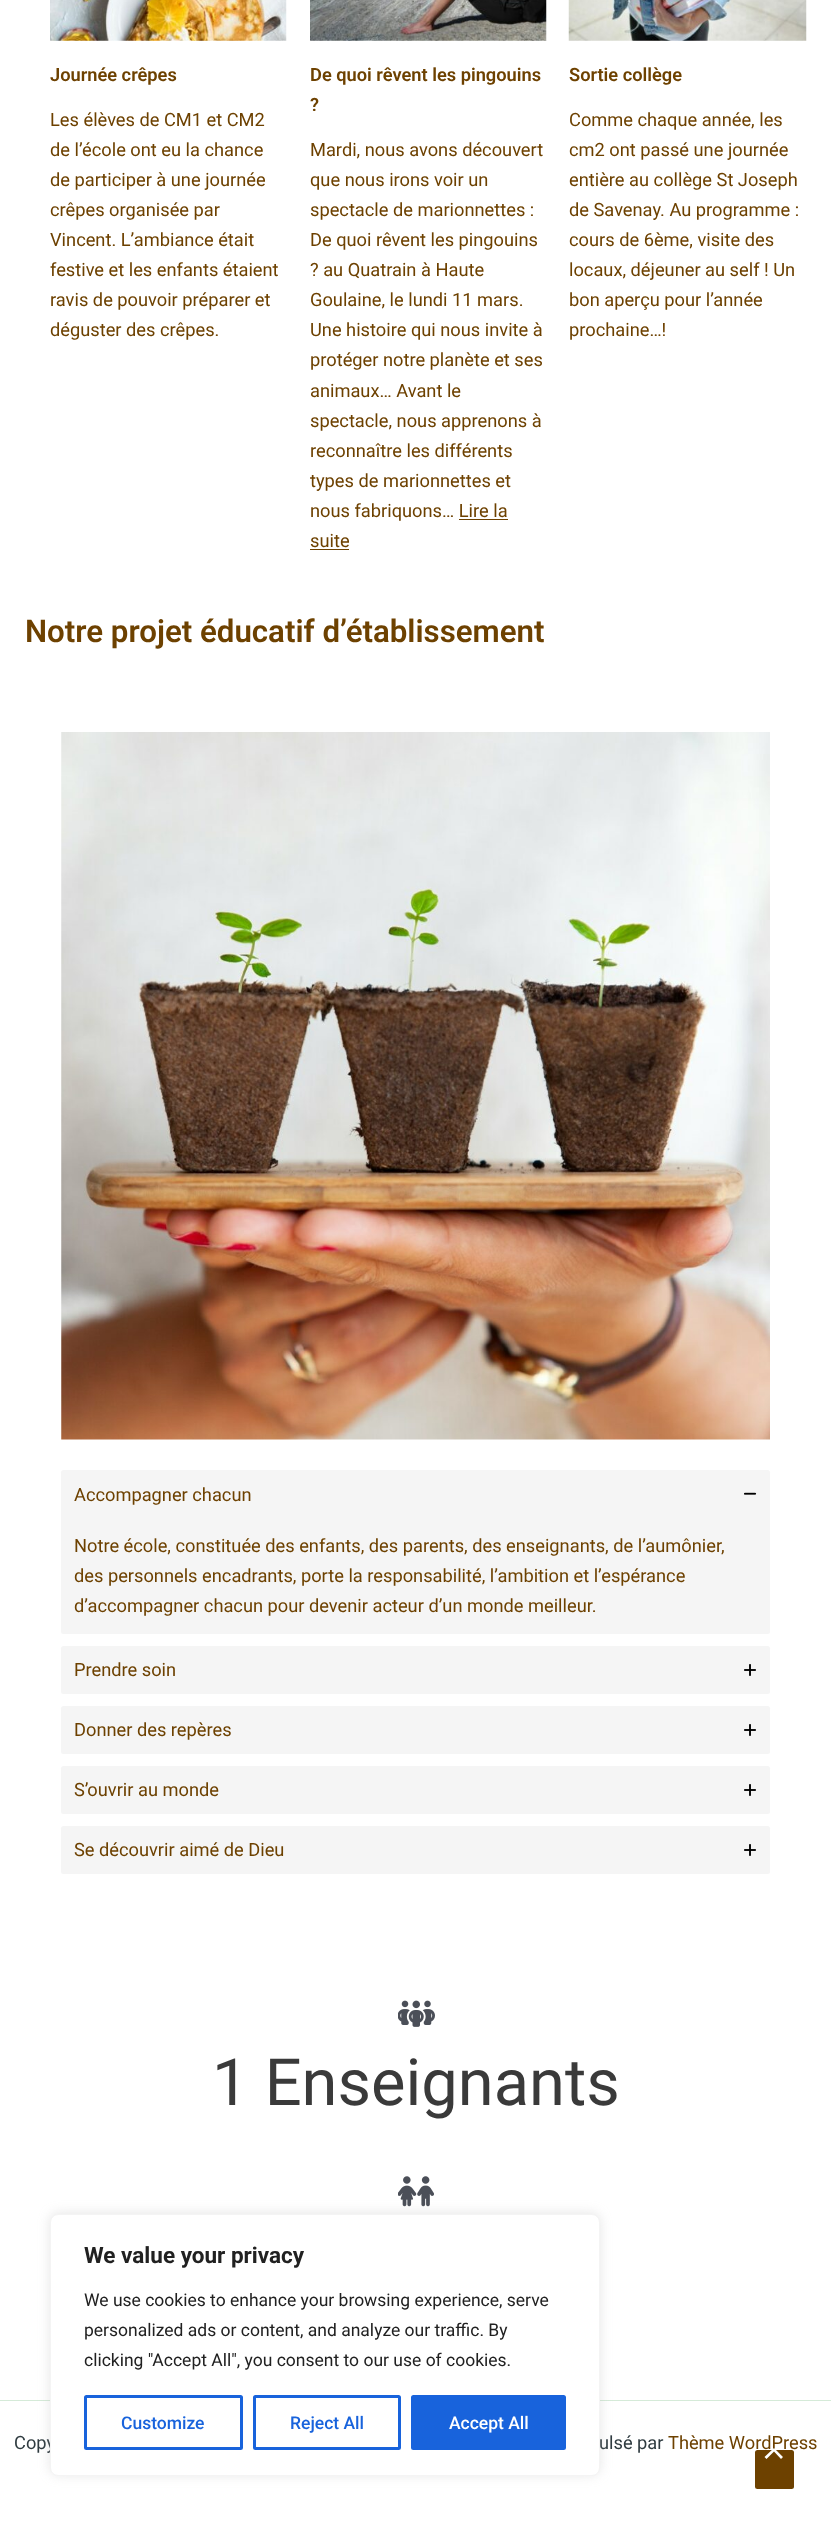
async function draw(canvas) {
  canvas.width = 831
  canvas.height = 2526
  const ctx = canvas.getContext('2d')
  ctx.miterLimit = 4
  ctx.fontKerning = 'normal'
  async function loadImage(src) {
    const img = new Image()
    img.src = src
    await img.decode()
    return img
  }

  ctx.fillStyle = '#fff'
  ctx.fillRect(0, 0, 831, 2526)
  ctx.drawImage(await loadImage('image0.png'), 50, 0, 237, 41)
  ctx.font = '600 18.25px Roboto'
  ctx.fillStyle = '#6d4100'
  ctx.fillText('Journée crêpes', 50, 81)
  ctx.font = '18.25px Roboto'
  ctx.fillText('Les élèves de CM1 et CM2', 50, 126)
  ctx.fillText('de l’école ont eu la chance', 50, 156)
  ctx.fillText('de participer à une journée', 50, 186)
  ctx.fillText('crêpes organisée par', 50, 216)
  ctx.fillText('Vincent. L’ambiance était', 50, 246)
  ctx.fillText('festive et les enfants étaient', 50, 276)
  ctx.fillText('ravis de pouvoir préparer et', 50, 306)
  ctx.fillText('déguster des crêpes.', 50, 336)
  ctx.drawImage(await loadImage('image1.png'), 310, 0, 237, 41)
  ctx.font = '600 18.25px Roboto'
  ctx.fillText('De quoi rêvent les pingouins', 310, 81)
  ctx.fillText('?', 310, 111)
  ctx.font = '18.25px Roboto'
  ctx.fillText('Mardi, nous avons découvert', 310, 156)
  ctx.fillText('que nous irons voir un', 310, 186)
  ctx.fillText('spectacle de marionnettes :', 310, 216)
  ctx.fillText('De quoi rêvent les pingouins', 310, 246)
  ctx.fillText('? au Quatrain à Haute', 310, 276)
  ctx.fillText('Goulaine, le lundi 11 mars.', 310, 306)
  ctx.fillText('Une histoire qui nous invite à', 310, 336)
  ctx.fillText('protéger notre planète et ses', 310, 366)
  ctx.fillText('animaux… Avant le', 310, 397)
  ctx.fillText('spectacle, nous apprenons à', 310, 427)
  ctx.fillText('reconnaître les différents', 310, 457)
  ctx.fillText('types de marionnettes et', 310, 487)
  ctx.fillText('nous fabriquons… Lire la', 310, 517)
  ctx.fillText('suite', 310, 547)
  ctx.fillRect(459, 519, 49, 1)
  ctx.fillRect(310, 549, 39, 1)
  ctx.drawImage(await loadImage('image2.png'), 568, 0, 239, 41)
  ctx.font = '600 18.25px Roboto'
  ctx.fillText('Sortie collège', 569, 81)
  ctx.font = '18.25px Roboto'
  ctx.fillText('Comme chaque année, les', 569, 126)
  ctx.fillText('cm2 ont passé une journée', 569, 156)
  ctx.fillText('entière au collège St Joseph', 569, 186)
  ctx.fillText('de Savenay. Au programme :', 569, 216)
  ctx.fillText('cours de 6ème, visite des', 569, 246)
  ctx.fillText('locaux, déjeuner au self ! Un', 569, 276)
  ctx.fillText('bon aperçu pour l’année', 569, 306)
  ctx.fillText('prochaine…!', 569, 336)
  ctx.font = '600 31.25px Roboto'
  ctx.fillText('Notre projet éducatif d’établissement', 25, 642)
  ctx.drawImage(await loadImage('image3.png'), 61, 732, 709, 708)
  ctx.fillStyle = '#f5f5f5'
  ctx.beginPath()
  ctx.roundRect(61, 1470, 709, 164, 2.5)
  ctx.fill()
  ctx.font = '18.25px Roboto'
  ctx.fillStyle = '#6d4100'
  ctx.fillText('Accompagner chacun', 74, 1501)
  ctx.drawImage(await loadImage('image4.png'), 744, 1492, 13, 3)
  ctx.fillText('Notre école, constituée des enfants, des parents, des enseignants, de l’aumônier,', 74, 1552)
  ctx.fillText('des personnels encadrants, porte la responsabilité, l’ambition et l’espérance', 74, 1582)
  ctx.fillText('d’accompagner chacun pour devenir acteur d’un monde meilleur.', 74, 1612)
  ctx.fillStyle = '#f5f5f5'
  ctx.beginPath()
  ctx.roundRect(61, 1646, 709, 48, 2.5)
  ctx.fill()
  ctx.fillStyle = '#6d4100'
  ctx.fillText('Prendre soin', 74, 1676)
  ctx.drawImage(await loadImage('image5.png'), 744, 1664, 12, 12)
  ctx.fillStyle = '#f5f5f5'
  ctx.beginPath()
  ctx.roundRect(61, 1706, 709, 48, 2.5)
  ctx.fill()
  ctx.fillStyle = '#6d4100'
  ctx.fillText('Donner des repères', 74, 1736)
  ctx.drawImage(await loadImage('image5.png'), 744, 1724, 12, 12)
  ctx.fillStyle = '#f5f5f5'
  ctx.beginPath()
  ctx.roundRect(61, 1766, 709, 48, 2.5)
  ctx.fill()
  ctx.fillStyle = '#6d4100'
  ctx.fillText('S’ouvrir au monde', 74, 1796)
  ctx.drawImage(await loadImage('image5.png'), 744, 1784, 12, 12)
  ctx.fillStyle = '#f5f5f5'
  ctx.beginPath()
  ctx.roundRect(61, 1826, 709, 48, 2.5)
  ctx.fill()
  ctx.fillStyle = '#6d4100'
  ctx.fillText('Se découvrir aimé de Dieu', 74, 1856)
  ctx.drawImage(await loadImage('image5.png'), 744, 1844, 12, 12)
  ctx.drawImage(await loadImage('image6.png'), 398, 2000, 37, 27)
  ctx.font = '65px Roboto'
  ctx.fillStyle = '#3a3a3a'
  ctx.fillText('1 Enseignants', 212, 2105)
  ctx.drawImage(await loadImage('image7.png'), 398, 2176, 36, 31)
  ctx.fillStyle = '#d5ead8'
  ctx.fillRect(0, 2400, 831, 1)
  ctx.font = '18.25px Roboto'
  ctx.fillStyle = '#2f3b40'
  ctx.fillText('Copy', 14, 2449)
  ctx.fillText('ulsé par', 599, 2449)
  ctx.fillStyle = '#6d4100'
  ctx.fillText('Thème WordPress', 668, 2449)
  ctx.fillStyle = '#acabab4d'
  ctx.filter = 'blur(6px)'
  ctx.beginPath()
  ctx.roundRect(50, 2213, 550, 262, 8)
  ctx.fill()
  ctx.filter = 'none'
  ctx.fillStyle = '#fff'
  ctx.beginPath()
  ctx.roundRect(50.5, 2214.5, 549, 261, 7.5)
  ctx.fill()
  ctx.strokeStyle = '#f4f4f4'
  ctx.stroke()
  ctx.font = 'bold 22.5px Roboto'
  ctx.fillStyle = '#212121'
  ctx.fillText('We value your privacy', 84, 2263)
  ctx.font = '17.5px Roboto'
  ctx.fillText('We use cookies to enhance your browsing experience, serve', 84, 2306)
  ctx.fillText('personalized ads or content, and analyze our traffic. By', 84, 2336)
  ctx.fillText('clicking "Accept All", you consent to our use of cookies.', 84, 2366)
  ctx.beginPath()
  ctx.roundRect(85.5, 2396.5, 156, 52, 1)
  ctx.strokeStyle = '#1863dc'
  ctx.lineWidth = 3
  ctx.stroke()
  ctx.font = '500 17.5px Roboto'
  ctx.fillStyle = '#1863dc'
  ctx.fillText('Customize', 121, 2429)
  ctx.beginPath()
  ctx.roundRect(254.5, 2396.5, 145, 52, 1)
  ctx.stroke()
  ctx.fillText('Reject All', 290, 2429)
  ctx.beginPath()
  ctx.roundRect(412.5, 2396.5, 152, 52, 1)
  ctx.fill()
  ctx.stroke()
  ctx.fillStyle = '#fff'
  ctx.fillText('Accept All', 449, 2429)
  ctx.fillStyle = '#6d4100'
  ctx.beginPath()
  ctx.roundRect(755, 2450, 39, 39, 2.5)
  ctx.fill()
  ctx.fillStyle = '#fff'
  ctx.beginPath()
  ctx.moveTo(783, 2457)
  ctx.lineTo(774, 2448)
  ctx.lineTo(764.5, 2457)
  ctx.lineTo(766.5, 2459)
  ctx.lineTo(774, 2451.5)
  ctx.lineTo(781, 2459)
  ctx.closePath()
  ctx.fill()
}

draw(document.querySelector('canvas'))
